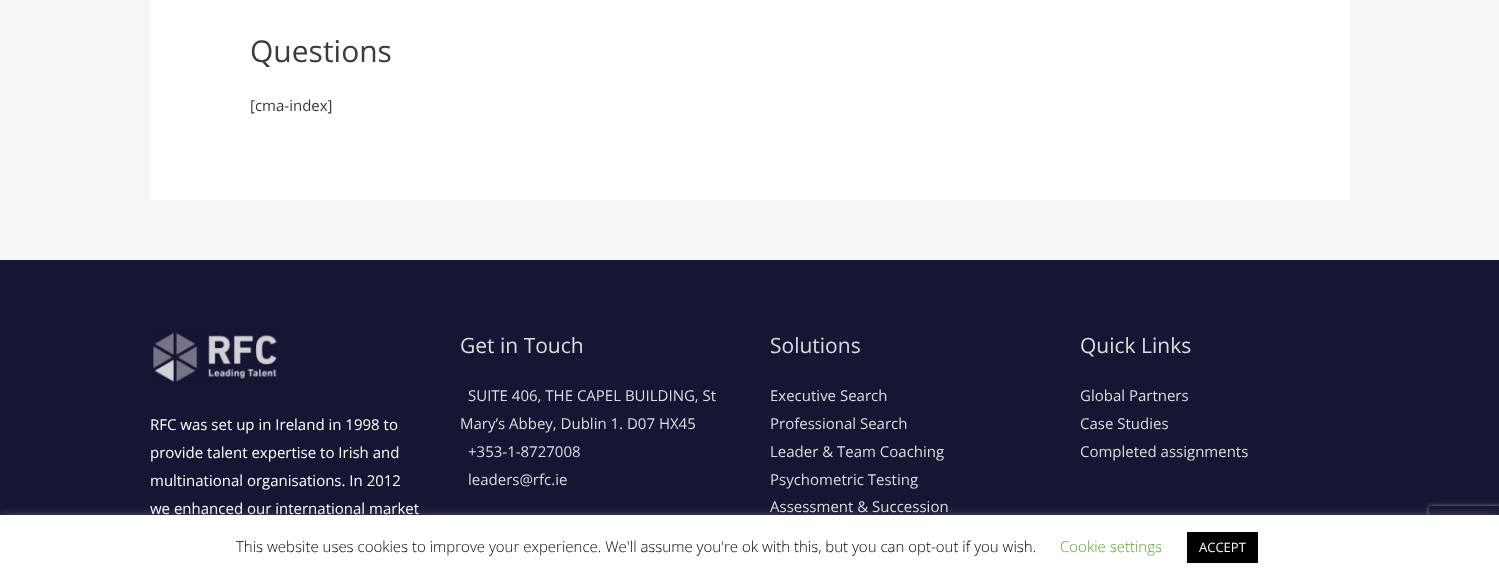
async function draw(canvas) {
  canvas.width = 1499
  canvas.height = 580
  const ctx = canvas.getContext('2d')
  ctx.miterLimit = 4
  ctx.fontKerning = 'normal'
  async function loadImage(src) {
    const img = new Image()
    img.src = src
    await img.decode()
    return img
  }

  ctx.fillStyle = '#f5f5f5'
  ctx.fillRect(0, 0, 1499, 580)
  ctx.fillStyle = '#fff'
  ctx.fillRect(150, 0, 1200, 200)
  ctx.font = '30px Open Sans'
  ctx.fillStyle = '#3a3a3a'
  ctx.fillText('Questions', 250, 62)
  ctx.font = '15px Open Sans'
  ctx.fillText('[cma-index]', 250, 111)
  ctx.fillStyle = '#151534'
  ctx.fillRect(0, 260, 1499, 255)
  ctx.drawImage(await loadImage('image0.png'), 153, 332, 124, 50)
  ctx.fillStyle = '#fff'
  ctx.fillText('RFC was set up in Ireland in 1998 to', 150, 430)
  ctx.fillText('provide talent expertise to Irish and', 150, 458)
  ctx.fillText('multinational organisations. In 2012', 150, 486)
  ctx.fillText('we enhanced our international market', 150, 514)
  ctx.font = '21px Open Sans'
  ctx.fillStyle = '#ddd'
  ctx.fillText('Get in Touch', 460, 353)
  ctx.font = '15px Open Sans'
  ctx.fillText('SUITE 406, THE CAPEL BUILDING, St', 468, 401)
  ctx.fillText('Mary’s Abbey, Dublin 1. D07 HX45', 460, 429)
  ctx.fillText('+353-1-8727008', 468, 457)
  ctx.fillText('leaders@rfc.ie', 468, 485)
  ctx.font = '21px Open Sans'
  ctx.fillText('Solutions', 770, 353)
  ctx.font = '15px Open Sans'
  ctx.fillText('Executive Search', 770, 401)
  ctx.fillText('Professional Search', 770, 429)
  ctx.fillText('Leader & Team Coaching', 770, 457)
  ctx.fillText('Psychometric Testing', 770, 485)
  ctx.fillText('Assessment & Succession', 770, 512)
  ctx.font = '21px Open Sans'
  ctx.fillText('Quick Links', 1080, 353)
  ctx.font = '15px Open Sans'
  ctx.fillText('Global Partners', 1080, 401)
  ctx.fillText('Case Studies', 1080, 429)
  ctx.fillText('Completed assignments', 1080, 457)
  ctx.fillStyle = '#acabab4d'
  ctx.filter = 'blur(5px)'
  ctx.beginPath()
  ctx.rect(0, 514, 1499, 65)
  ctx.fill()
  ctx.filter = 'none'
  ctx.save()
  ctx.beginPath()
  ctx.moveTo(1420, 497)
  ctx.lineTo(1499, 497)
  ctx.lineTo(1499, 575)
  ctx.lineTo(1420, 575)
  ctx.closePath()
  ctx.moveTo(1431, 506)
  ctx.lineTo(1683, 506)
  ctx.bezierCurveTo(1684, 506, 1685, 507, 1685, 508)
  ctx.lineTo(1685, 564)
  ctx.bezierCurveTo(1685, 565, 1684, 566, 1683, 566)
  ctx.lineTo(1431, 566)
  ctx.bezierCurveTo(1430, 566, 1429, 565, 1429, 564)
  ctx.lineTo(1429, 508)
  ctx.bezierCurveTo(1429, 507, 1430, 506, 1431, 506)
  ctx.closePath()
  ctx.clip('evenodd')
  ctx.fillStyle = '#808080'
  ctx.filter = 'blur(2.5px)'
  ctx.beginPath()
  ctx.roundRect(1429, 506, 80, 60, 2)
  ctx.fill()
  ctx.filter = 'none'
  ctx.restore()
  ctx.fillStyle = '#fff'
  ctx.fillRect(0, 515, 1499, 65)
  ctx.font = '300 15px Open Sans'
  ctx.fillStyle = '#000'
  ctx.fillText('This website uses cookies to improve your experience. We\'ll assume you\'re ok with this, but you can opt-out if you wish.', 236, 552)
  ctx.fillStyle = '#62a329'
  ctx.fillText('Cookie settings', 1060, 552)
  ctx.fillStyle = '#000'
  ctx.fillRect(1187, 532, 71, 31)
  ctx.font = '13px Open Sans'
  ctx.fillStyle = '#fff'
  ctx.fillText('ACCEPT', 1199, 552)
}

draw(document.querySelector('canvas'))
